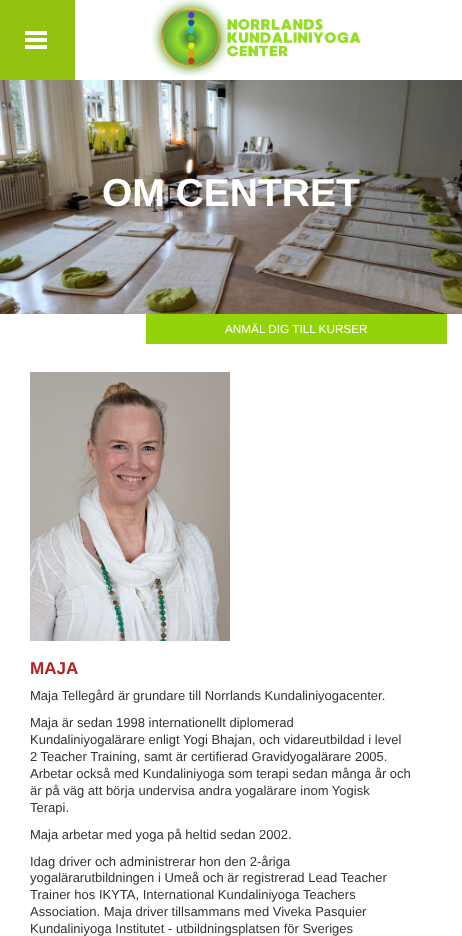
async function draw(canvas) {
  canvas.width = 462
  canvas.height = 936
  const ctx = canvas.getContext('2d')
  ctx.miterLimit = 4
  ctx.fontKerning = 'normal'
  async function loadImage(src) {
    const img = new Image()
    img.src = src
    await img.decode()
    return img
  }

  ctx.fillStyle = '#fff'
  ctx.fillRect(0, 0, 462, 936)
  ctx.fillStyle = '#91c210'
  ctx.fillRect(0, 0, 75, 80)
  ctx.drawImage(await loadImage('image0.png'), 25, 31, 22, 18)
  ctx.drawImage(await loadImage('image1.png'), 152, 0, 209, 75)
  ctx.drawImage(await loadImage('image2.png'), 0, 80, 462, 234)
  ctx.font = 'bold 39px Liberation Sans'
  ctx.fillStyle = '#fff'
  ctx.fillText('OM CENTRET', 102, 206)
  ctx.fillStyle = '#94d309'
  ctx.fillRect(146, 314, 301, 30)
  ctx.font = '11.75px Liberation Sans'
  ctx.fillStyle = '#fff'
  ctx.fillText('ANMÄL DIG TILL KURSER', 225, 333)
  ctx.drawImage(await loadImage('image3.png'), 30, 372, 200, 269)
  ctx.font = 'bold 17px Liberation Sans'
  ctx.fillStyle = '#b22222'
  ctx.fillText('MAJA', 30, 674)
  ctx.font = '13px Liberation Sans'
  ctx.fillStyle = '#333'
  ctx.fillText('Maja Tellegård är grundare till Norrlands Kundaliniyogacenter.', 30, 700)
  ctx.fillText('Maja är sedan 1998 internationellt diplomerad', 30, 727)
  ctx.fillText('Kundaliniyogalärare enligt Yogi Bhajan, och vidareutbildad i level', 30, 744)
  ctx.fillText('2 Teacher Training, samt är certifierad Gravidyogalärare 2005.', 30, 761)
  ctx.fillText('Arbetar också med Kundaliniyoga som terapi sedan många år och', 30, 778)
  ctx.fillText('är på väg att börja undervisa andra yogalärare inom Yogisk', 30, 795)
  ctx.fillText('Terapi.', 30, 812)
  ctx.fillText('Maja arbetar med yoga på heltid sedan 2002.', 30, 839)
  ctx.fillText('Idag driver och administrerar hon den 2-åriga', 30, 866)
  ctx.fillText('yogalärarutbildningen i Umeå och är registrerad Lead Teacher', 30, 882)
  ctx.fillText('Trainer hos IKYTA, International Kundaliniyoga Teachers', 30, 899)
  ctx.fillText('Association. Maja driver tillsammans med Viveka Pasquier', 30, 916)
  ctx.fillText('Kundaliniyoga Institutet - utbildningsplatsen för Sveriges', 30, 933)
}

draw(document.querySelector('canvas'))
